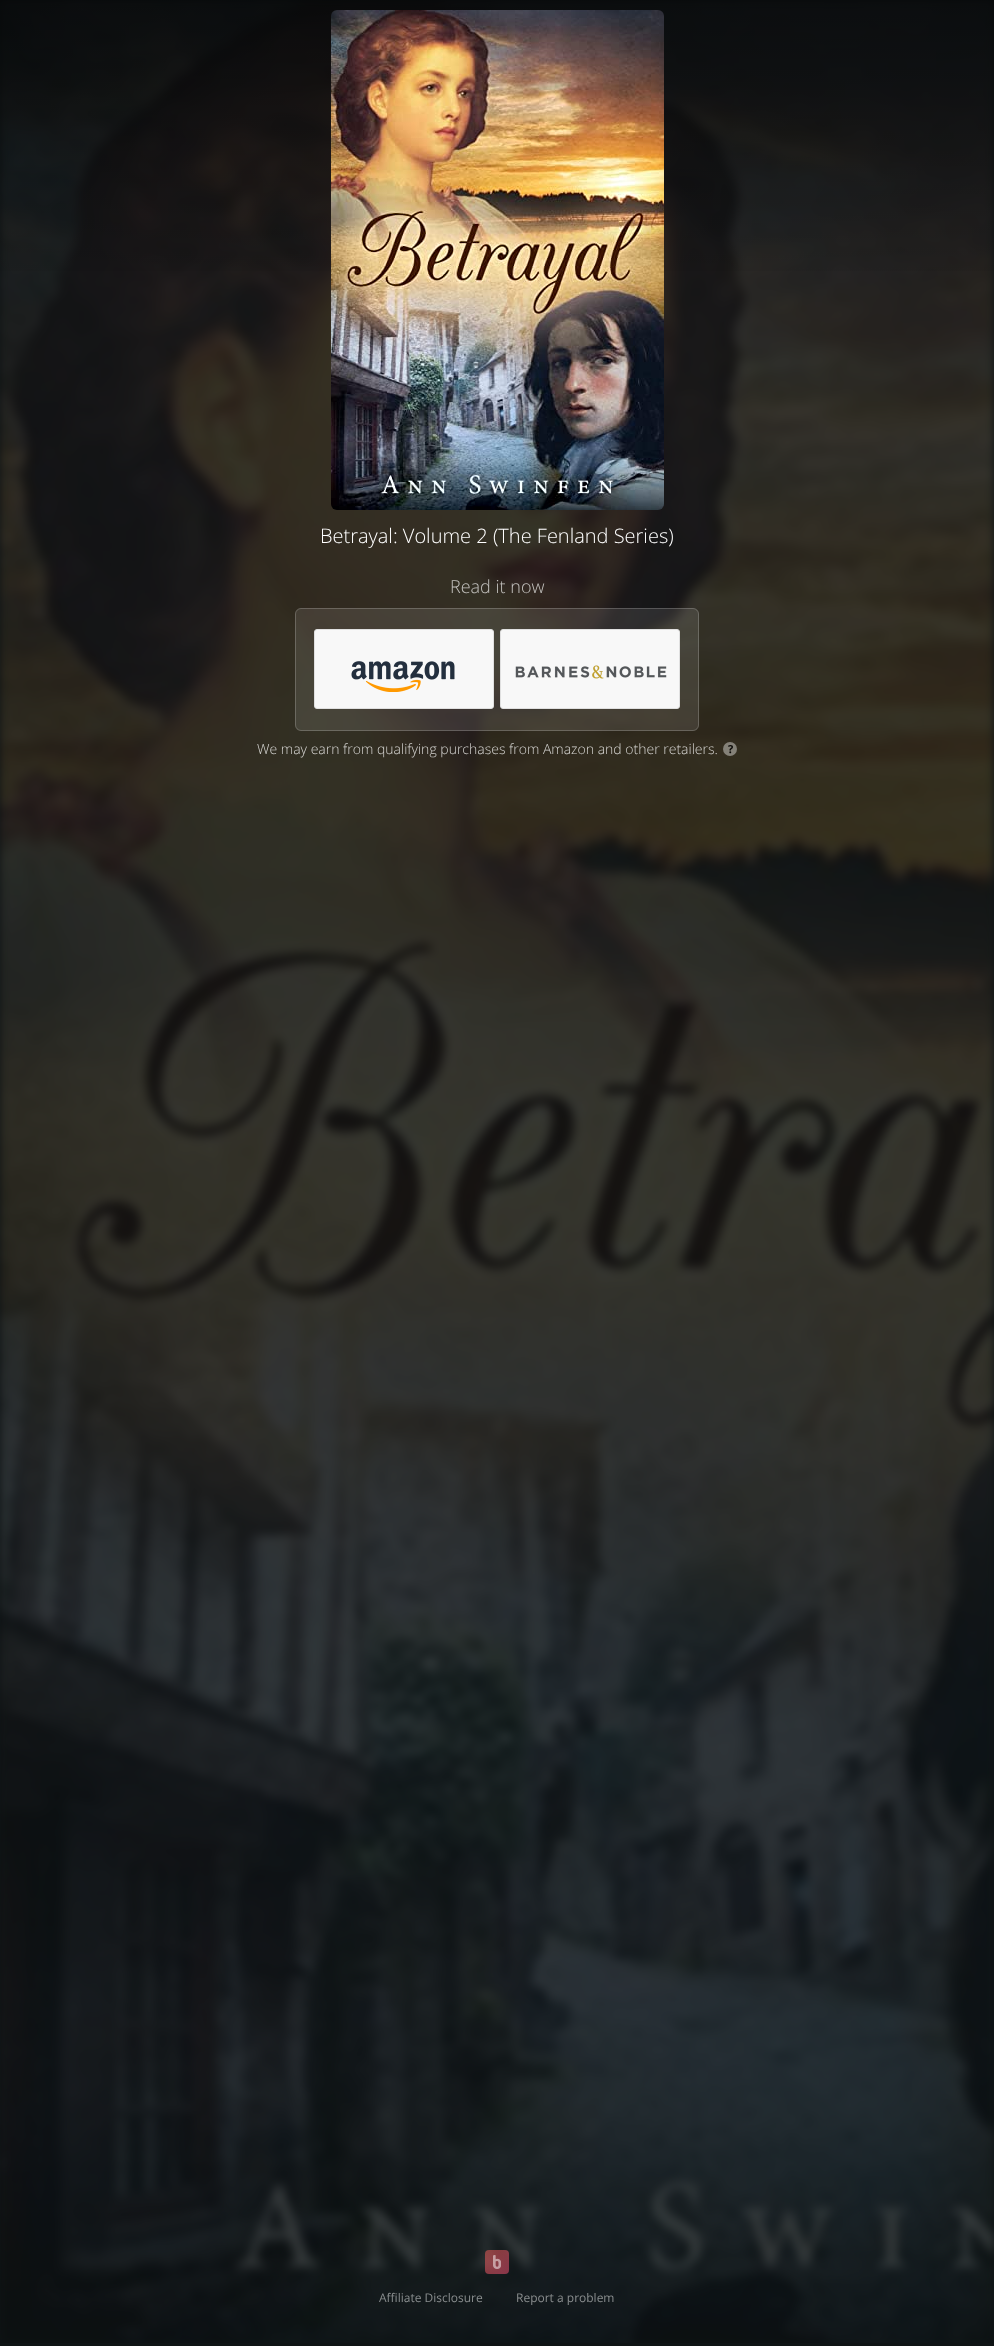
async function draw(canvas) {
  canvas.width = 994
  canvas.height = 2346
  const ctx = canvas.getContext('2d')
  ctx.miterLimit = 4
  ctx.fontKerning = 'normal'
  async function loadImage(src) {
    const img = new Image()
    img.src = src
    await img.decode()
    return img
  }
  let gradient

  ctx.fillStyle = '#0f1415'
  ctx.fillRect(0, 0, 994, 2346)
  ctx.drawImage(await loadImage('image0.png'), 0, 0, 994, 2343)
  gradient = ctx.createLinearGradient(497, 0, 497, 300)
  gradient.addColorStop(0, '#00000080')
  gradient.addColorStop(1, '#00000000')
  ctx.fillStyle = gradient
  ctx.fillRect(0, 0, 994, 271)
  ctx.drawImage(await loadImage('image1.png'), 331, 10, 333, 500)
  ctx.font = '300 20px Open Sans'
  ctx.fillStyle = '#fff'
  ctx.fillText('Betrayal: Volume 2 (The Fenland Series)', 320, 543)
  ctx.font = '300 18px Open Sans'
  ctx.fillStyle = '#c2c0bd'
  ctx.fillText('Read it now', 450, 593)
  ctx.fillStyle = '#ffffff1a'
  ctx.beginPath()
  ctx.roundRect(295, 608, 404, 123, 6)
  ctx.fill()
  ctx.beginPath()
  ctx.roundRect(295.5, 608.5, 403, 122, 5.5)
  ctx.strokeStyle = '#ffffff33'
  ctx.stroke()
  ctx.fillStyle = '#f8f8f8'
  ctx.beginPath()
  ctx.roundRect(314.5, 629.5, 179, 79, 2.5)
  ctx.fill()
  ctx.strokeStyle = '#e0e0e0'
  ctx.stroke()
  ctx.drawImage(await loadImage('image2.png'), 351, 661, 104, 31)
  ctx.beginPath()
  ctx.roundRect(500.5, 629.5, 179, 79, 2.5)
  ctx.fill()
  ctx.stroke()
  ctx.drawImage(await loadImage('image3.png'), 515, 665, 152, 14)
  ctx.font = '300 14px Open Sans'
  ctx.fillStyle = '#d6d5d2'
  ctx.fillText('We may earn from qualifying purchases from Amazon and other retailers.', 257, 754)
  ctx.fillStyle = '#ffffff66'
  ctx.beginPath()
  ctx.arc(730, 749, 7, 0, 2 * Math.PI)
  ctx.fill()
  ctx.font = 'bold 11px Open Sans'
  ctx.fillStyle = '#0a0906'
  ctx.fillText('?', 728, 753)
  gradient = ctx.createLinearGradient(485, 2250, 509, 2274)
  gradient.addColorStop(0, '#f9625980')
  gradient.addColorStop(1, '#ff537a80')
  ctx.fillStyle = gradient
  ctx.beginPath()
  ctx.roundRect(485, 2250, 24, 24, 4)
  ctx.fill()
  ctx.drawImage(await loadImage('image4.png'), 493, 2255, 8, 14)
  ctx.font = '12px Open Sans'
  ctx.fillStyle = '#898d8e'
  ctx.fillText('Affiliate Disclosure', 379, 2302)
  ctx.fillText('Report a problem', 516, 2302)
}

draw(document.querySelector('canvas'))
